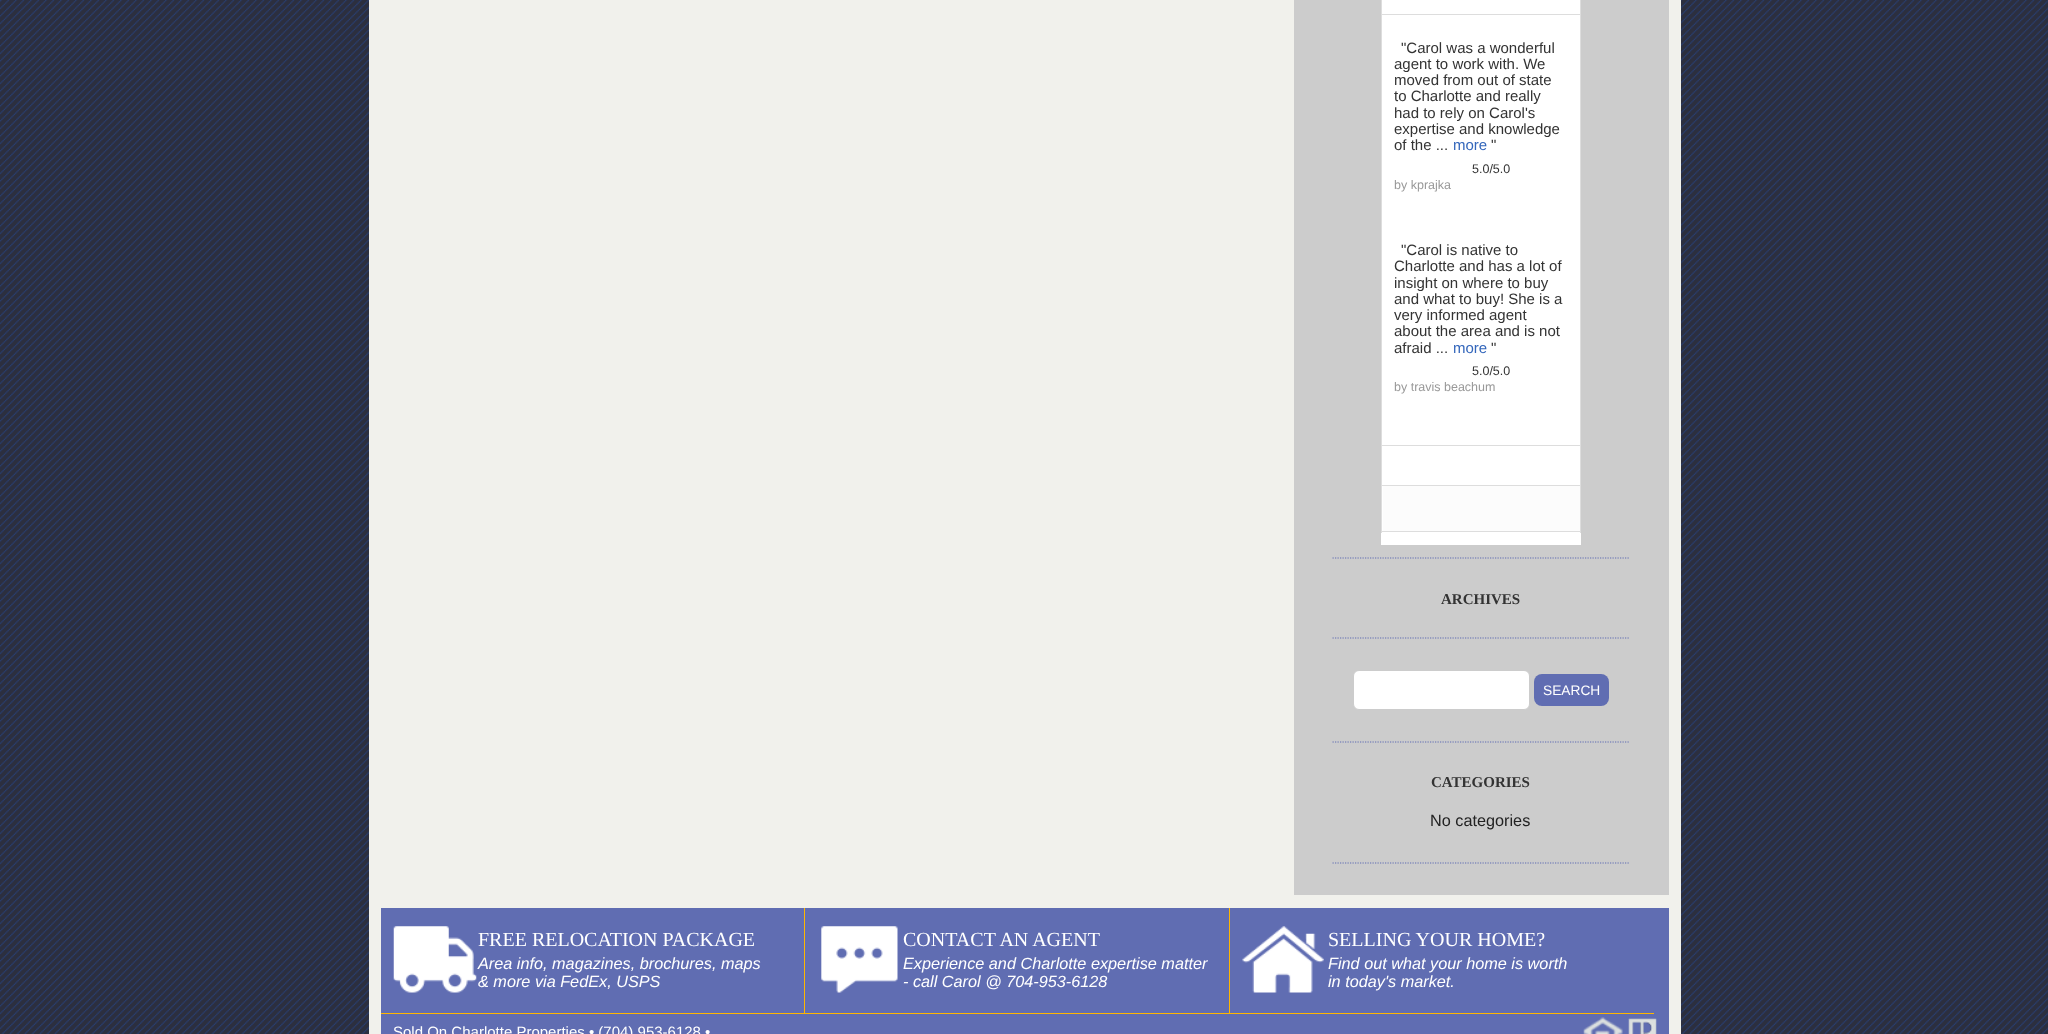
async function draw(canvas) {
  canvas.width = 2048
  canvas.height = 1034
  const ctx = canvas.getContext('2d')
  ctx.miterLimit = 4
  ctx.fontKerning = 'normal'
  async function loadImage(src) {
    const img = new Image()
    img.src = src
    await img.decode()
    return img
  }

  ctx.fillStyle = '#fff'
  ctx.fillRect(0, 0, 2048, 1034)
  ctx.drawImage(await loadImage('image0.png'), 0, 0, 2048, 1034)
  ctx.fillStyle = '#f1f1ec'
  ctx.fillRect(369, 0, 1312, 1034)
  ctx.fillStyle = '#ccc'
  ctx.fillRect(1294, 0, 375, 895)
  ctx.beginPath()
  ctx.moveTo(1332.5, 558)
  ctx.lineTo(1630, 558)
  ctx.strokeStyle = '#606db2'
  ctx.lineWidth = 1.2
  ctx.setLineDash([1.25, 1.25])
  ctx.stroke()
  ctx.fillStyle = '#fff'
  ctx.fillRect(1381, 0, 200, 545)
  ctx.fillStyle = '#ddd'
  ctx.fillRect(1580, 0, 1, 533)
  ctx.fillRect(1381, 14, 200, 1)
  ctx.fillRect(1381, 0, 1, 15)
  ctx.fillRect(1381, 445, 200, 1)
  ctx.fillRect(1381, 15, 1, 431)
  ctx.font = '15px Liberation Sans'
  ctx.fillStyle = '#333'
  ctx.fillText('"Carol was a wonderful', 1401, 53)
  ctx.fillText('agent to work with. We', 1394, 69)
  ctx.fillText('moved from out of state', 1394, 85)
  ctx.fillText('to Charlotte and really', 1394, 101)
  ctx.fillText('had to rely on Carol\'s', 1394, 118)
  ctx.fillText('expertise and knowledge', 1394, 134)
  ctx.fillText('of the ...', 1394, 150)
  ctx.fillStyle = '#36b'
  ctx.fillText('more', 1453, 150)
  ctx.fillStyle = '#333'
  ctx.fillText('"', 1491, 150)
  ctx.font = '12.5px Liberation Sans'
  ctx.fillText('5.0/5.0', 1472, 173)
  ctx.fillStyle = '#999'
  ctx.fillText('by kprajka', 1394, 189)
  ctx.font = '15px Liberation Sans'
  ctx.fillStyle = '#333'
  ctx.fillText('"Carol is native to', 1401, 255)
  ctx.fillText('Charlotte and has a lot of', 1394, 271)
  ctx.fillText('insight on where to buy', 1394, 288)
  ctx.fillText('and what to buy! She is a', 1394, 304)
  ctx.fillText('very informed agent', 1394, 320)
  ctx.fillText('about the area and is not', 1394, 336)
  ctx.fillText('afraid ...', 1394, 353)
  ctx.fillStyle = '#36b'
  ctx.fillText('more', 1453, 353)
  ctx.fillStyle = '#333'
  ctx.fillText('"', 1491, 353)
  ctx.font = '12.5px Liberation Sans'
  ctx.fillText('5.0/5.0', 1472, 375)
  ctx.fillStyle = '#999'
  ctx.fillText('by travis beachum', 1394, 391)
  ctx.fillStyle = '#ddd'
  ctx.fillRect(1381, 485, 200, 1)
  ctx.fillRect(1381, 446, 1, 40)
  ctx.fillStyle = '#fcfcfc'
  ctx.fillRect(1383, 486, 197, 45)
  ctx.fillStyle = '#ddd'
  ctx.fillRect(1381, 531, 200, 1)
  ctx.fillRect(1381, 486, 1, 47)
  ctx.beginPath()
  ctx.moveTo(1332.5, 638)
  ctx.lineTo(1630, 638)
  ctx.stroke()
  ctx.font = 'bold 15px Liberation Serif'
  ctx.fillStyle = '#333'
  ctx.fillText('ARCHIVES', 1441, 604)
  ctx.beginPath()
  ctx.moveTo(1332.5, 742)
  ctx.lineTo(1630, 742)
  ctx.stroke()
  ctx.fillStyle = '#fff'
  ctx.beginPath()
  ctx.roundRect(1353.5, 670.5, 176, 39, 5.5)
  ctx.fill()
  ctx.strokeStyle = '#ccc'
  ctx.lineWidth = 1
  ctx.setLineDash([])
  ctx.stroke()
  ctx.fillStyle = '#606db2'
  ctx.beginPath()
  ctx.roundRect(1534, 674, 75, 32, 8)
  ctx.fill()
  ctx.font = '13.75px Liberation Sans'
  ctx.fillStyle = '#fff'
  ctx.fillText('SEARCH', 1543, 695)
  ctx.beginPath()
  ctx.moveTo(1332.5, 863)
  ctx.lineTo(1630, 863)
  ctx.strokeStyle = '#606db2'
  ctx.lineWidth = 1.2
  ctx.setLineDash([1.25, 1.25])
  ctx.stroke()
  ctx.font = 'bold 15px Liberation Serif'
  ctx.fillStyle = '#333'
  ctx.fillText('CATEGORIES', 1431, 787)
  ctx.font = '16.25px Liberation Sans'
  ctx.fillStyle = '#222'
  ctx.fillText('No categories', 1430, 826)
  ctx.fillStyle = '#606db2'
  ctx.fillRect(381, 908, 1288, 126)
  ctx.fillStyle = '#feb600'
  ctx.fillRect(804, 908, 1, 106)
  ctx.fillRect(381, 1013, 424, 1)
  ctx.drawImage(await loadImage('image1.png'), 393, 926, 84, 67)
  ctx.font = '20px Liberation Serif'
  ctx.fillStyle = '#fff'
  ctx.fillText('FREE RELOCATION PACKAGE', 478, 946)
  ctx.font = 'italic 16.25px Liberation Sans'
  ctx.fillText('Area info, magazines, brochures, maps', 478, 969)
  ctx.fillText('& more via FedEx, USPS', 478, 987)
  ctx.fillStyle = '#feb600'
  ctx.fillRect(1229, 908, 1, 106)
  ctx.fillRect(805, 1013, 849, 1)
  ctx.drawImage(await loadImage('image2.png'), 821, 926, 77, 67)
  ctx.font = '20px Liberation Serif'
  ctx.fillStyle = '#fff'
  ctx.fillText('CONTACT AN AGENT', 903, 946)
  ctx.font = 'italic 16.25px Liberation Sans'
  ctx.fillText('Experience and Charlotte expertise matter', 903, 969)
  ctx.fillText('- call Carol @ 704-953-6128', 903, 987)
  ctx.drawImage(await loadImage('image3.png'), 1242, 926, 82, 67)
  ctx.font = '20px Liberation Serif'
  ctx.fillText('SELLING YOUR HOME?', 1328, 946)
  ctx.font = 'italic 16.25px Liberation Sans'
  ctx.fillText('Find out what your home is worth', 1328, 969)
  ctx.fillText('in today\'s market.', 1328, 987)
  ctx.font = '15px Liberation Sans'
  ctx.fillText('Sold On Charlotte Properties • (704) 953-6128 •', 393, 1037)
  ctx.drawImage(await loadImage('image4.png'), 1583, 1017, 40, 17)
  ctx.drawImage(await loadImage('image5.png'), 1628, 1018, 29, 16)
}

draw(document.querySelector('canvas'))
